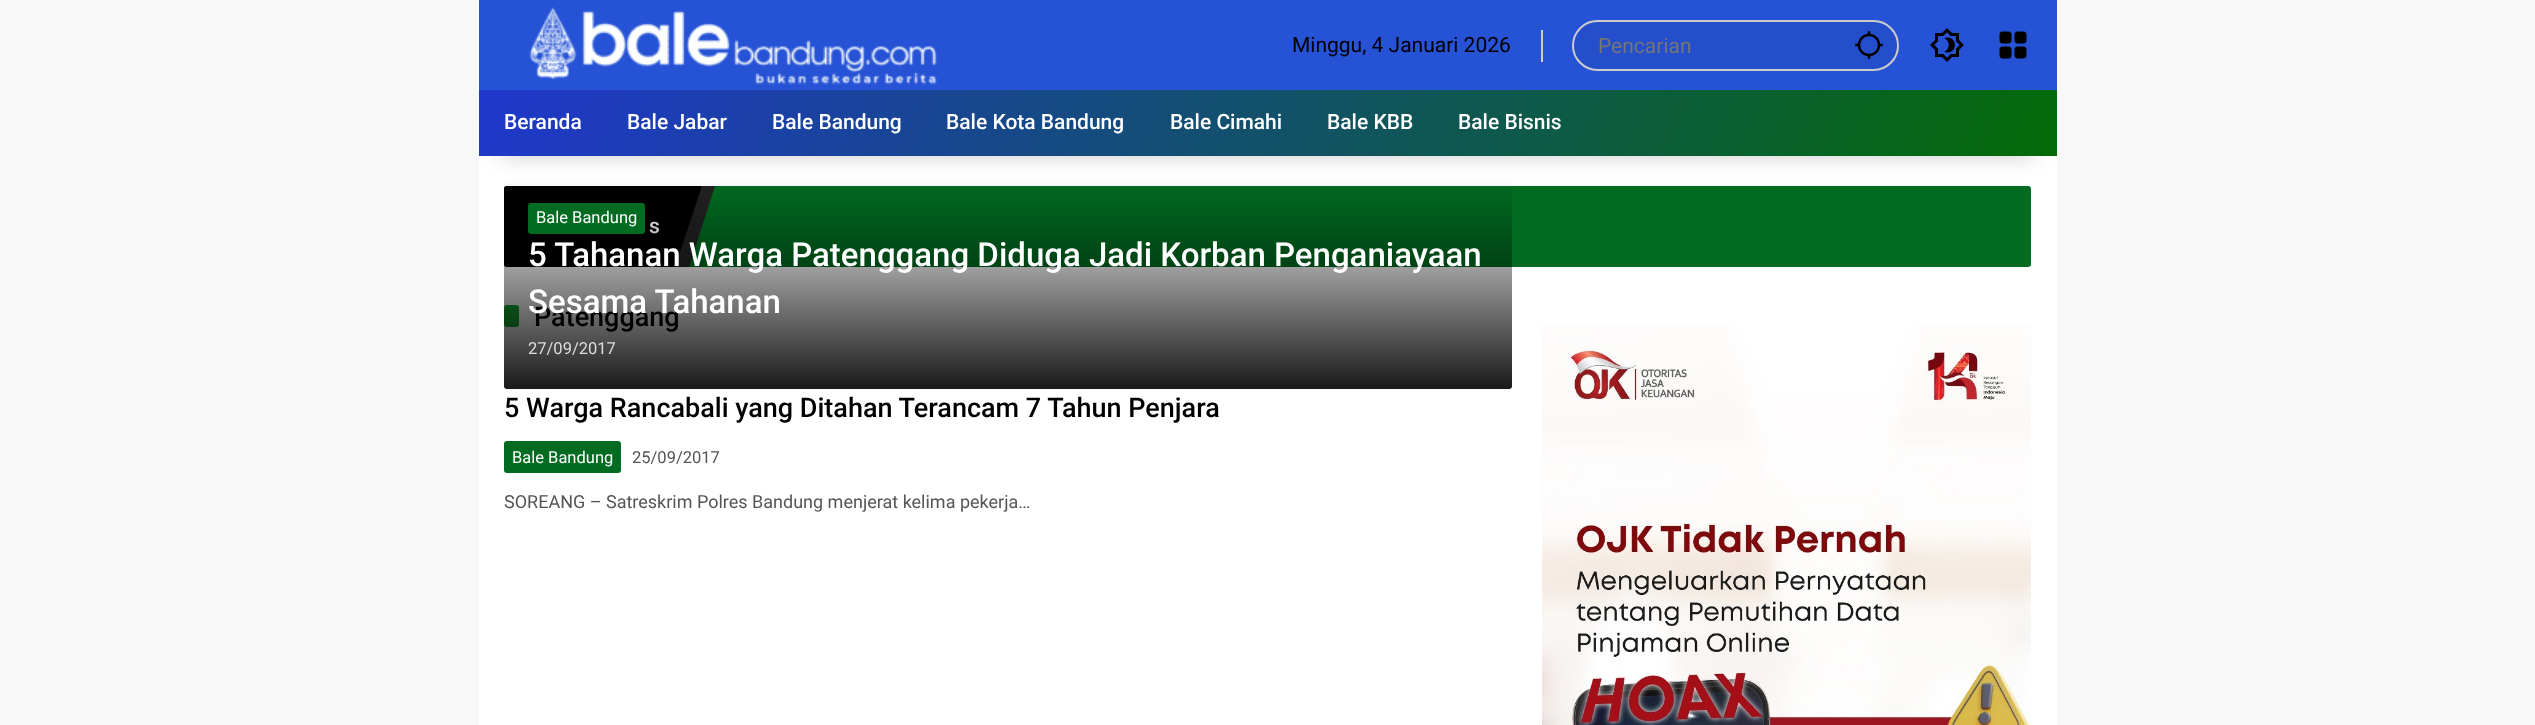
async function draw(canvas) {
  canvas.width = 2535
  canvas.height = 725
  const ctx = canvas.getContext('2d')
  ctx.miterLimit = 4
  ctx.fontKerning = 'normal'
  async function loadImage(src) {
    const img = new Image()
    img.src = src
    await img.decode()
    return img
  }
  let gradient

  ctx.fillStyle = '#f8f8f8'
  ctx.fillRect(0, 0, 2535, 725)
  ctx.fillStyle = '#fff'
  ctx.fillRect(479, 156, 1578, 569)
  ctx.fillStyle = '#2652d6'
  ctx.fillRect(479, 0, 1578, 90)
  ctx.drawImage(await loadImage('image0.png'), 529, 7, 409, 79)
  ctx.fillStyle = '#ccc'
  ctx.fillRect(1541, 30, 2, 32)
  ctx.font = '21px Roboto'
  ctx.fillStyle = '#000'
  ctx.fillText('Minggu, 4 Januari 2026', 1292, 52)
  ctx.fillStyle = '#244ecb'
  ctx.beginPath()
  ctx.roundRect(1573, 21, 325, 49, 24.5)
  ctx.fill()
  ctx.strokeStyle = '#ccc'
  ctx.lineWidth = 2
  ctx.stroke()
  ctx.fillStyle = '#757575'
  ctx.fillText('Pencarian', 1598, 53)
  ctx.drawImage(await loadImage('image1.png'), 1855, 31, 28, 28)
  ctx.drawImage(await loadImage('image2.png'), 1930, 28, 34, 34)
  ctx.drawImage(await loadImage('image3.png'), 1999, 31, 28, 28)
  ctx.fillStyle = '#19aa34'
  ctx.beginPath()
  ctx.roundRect(504, 305, 15, 22, 3)
  ctx.fill()
  ctx.font = '500 27px Roboto'
  ctx.fillStyle = '#000'
  ctx.fillText('Patenggang', 534, 326)
  ctx.fillStyle = '#006b21'
  ctx.beginPath()
  ctx.roundRect(504, 186, 1527, 81, 3)
  ctx.fill()
  ctx.fillStyle = '#000'
  ctx.beginPath()
  ctx.roundRect(504, 186, 171, 81, [3, 0, 0, 3])
  ctx.fill()
  ctx.fillStyle = '#222'
  ctx.beginPath()
  ctx.moveTo(700, 186)
  ctx.lineTo(715, 186)
  ctx.lineTo(689, 267)
  ctx.lineTo(674, 267)
  ctx.closePath()
  ctx.fill()
  ctx.font = '500 21px Roboto'
  ctx.fillStyle = '#fff'
  ctx.fillText('s', 649, 233)
  ctx.fillStyle = '#000'
  ctx.beginPath()
  ctx.moveTo(675, 186)
  ctx.lineTo(702, 186)
  ctx.lineTo(675, 267)
  ctx.closePath()
  ctx.fill()
  gradient = ctx.createLinearGradient(1008, 389, 1008, 179)
  gradient.addColorStop(0, '#000000e6')
  gradient.addColorStop(1, '#00000000')
  ctx.fillStyle = gradient
  ctx.beginPath()
  ctx.roundRect(504, 179, 1008, 210, [0, 0, 3, 3])
  ctx.fill()
  ctx.fillStyle = '#00000033'
  ctx.filter = 'blur(11px)'
  ctx.beginPath()
  ctx.rect(501, 135, 1533, 21)
  ctx.fill()
  ctx.filter = 'none'
  gradient = ctx.createLinearGradient(1938, 422, 597, -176)
  gradient.addColorStop(0, '#046b07')
  gradient.addColorStop(1, '#2037cc')
  ctx.fillStyle = gradient
  ctx.fillRect(479, 90, 1578, 66)
  ctx.fillStyle = '#fff'
  ctx.fillText('Beranda', 504, 129)
  ctx.fillText('Bale Jabar', 627, 129)
  ctx.fillText('Bale Bandung', 772, 129)
  ctx.fillText('Bale Kota Bandung', 946, 129)
  ctx.fillText('Bale Cimahi', 1170, 129)
  ctx.fillText('Bale KBB', 1327, 129)
  ctx.fillText('Bale Bisnis', 1458, 129)
  ctx.fillStyle = '#006b21'
  ctx.beginPath()
  ctx.roundRect(528, 203, 117, 31, 3)
  ctx.fill()
  ctx.font = '16.5px Roboto'
  ctx.fillStyle = '#fff'
  ctx.fillText('Bale Bandung', 536, 223)
  ctx.font = '500 33px Roboto'
  ctx.fillText('5 Tahanan Warga Patenggang Diduga Jadi Korban Penganiayaan', 528, 266)
  ctx.fillText('Sesama Tahanan', 528, 313)
  ctx.font = '16.5px Roboto'
  ctx.fillStyle = '#ddd'
  ctx.fillText('27/09/2017', 528, 354)
  ctx.font = '500 27px Roboto'
  ctx.fillStyle = '#000'
  ctx.fillText('5 Warga Rancabali yang Ditahan Terancam 7 Tahun Penjara', 504, 417)
  ctx.fillStyle = '#006b21'
  ctx.beginPath()
  ctx.roundRect(504, 441, 117, 32, 3)
  ctx.fill()
  ctx.font = '16.5px Roboto'
  ctx.fillStyle = '#fff'
  ctx.fillText('Bale Bandung', 512, 463)
  ctx.fillStyle = '#555'
  ctx.fillText('25/09/2017', 632, 463)
  ctx.font = '18px Roboto'
  ctx.fillText('SOREANG – Satreskrim Polres Bandung menjerat kelima pekerja…', 504, 508)
  ctx.drawImage(await loadImage('image4.png'), 1542, 323, 489, 402)
}

draw(document.querySelector('canvas'))
